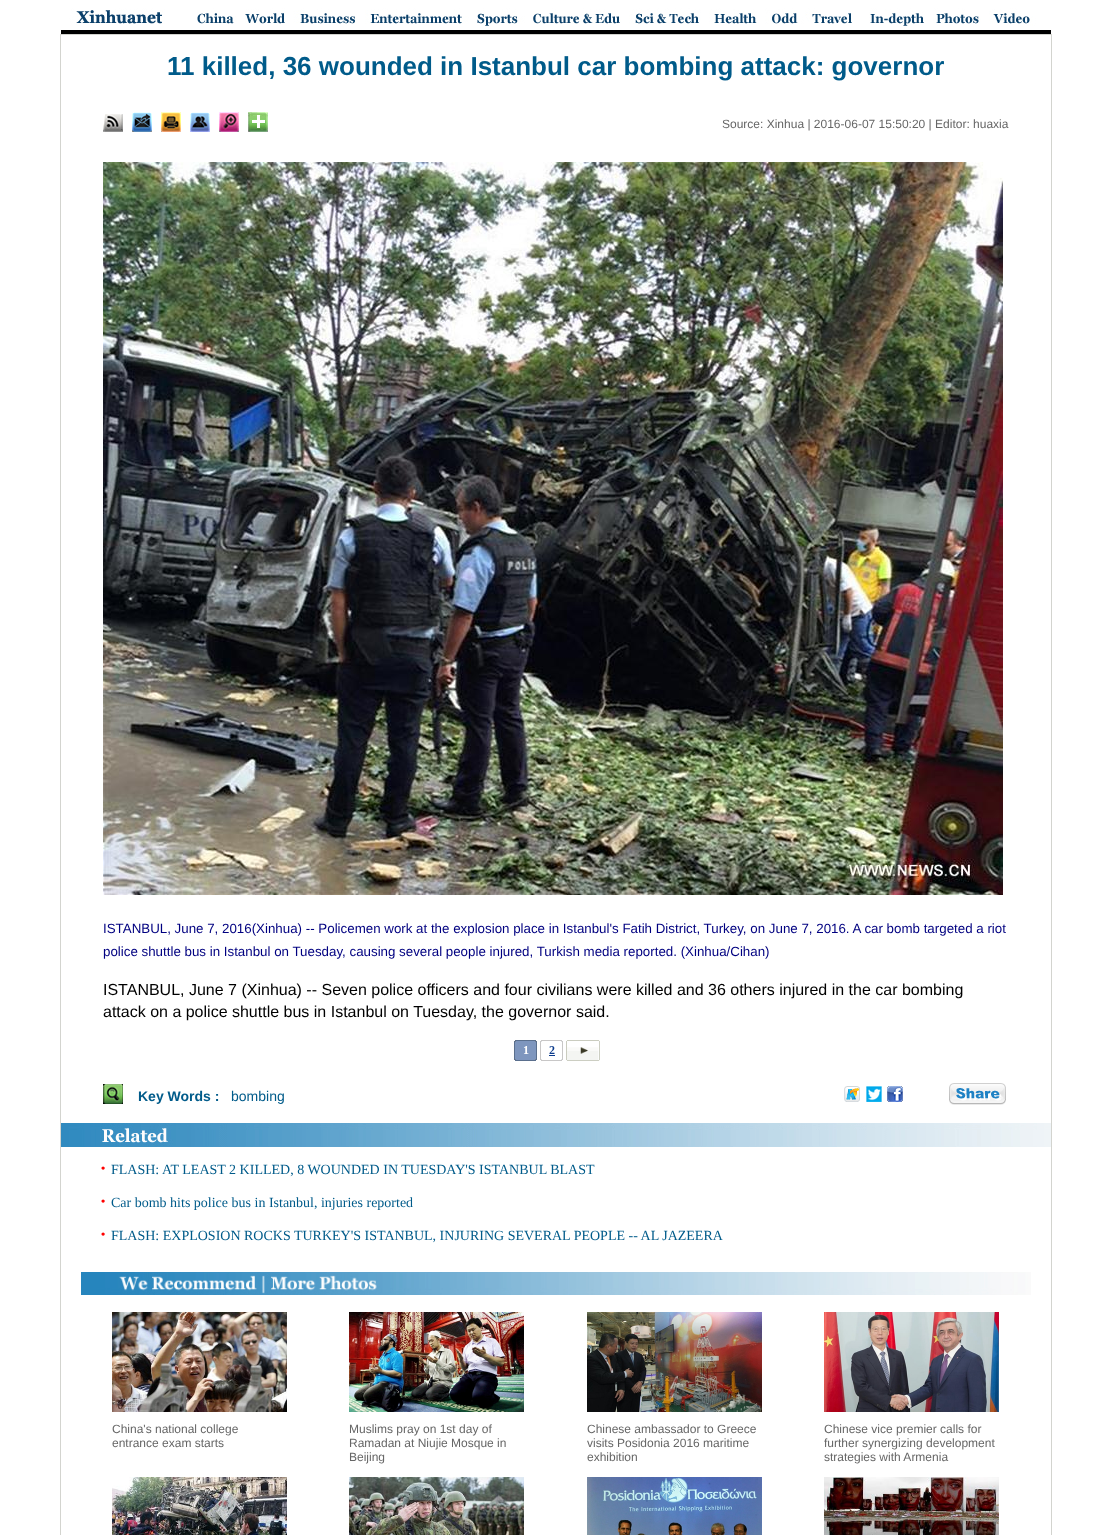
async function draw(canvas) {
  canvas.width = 1111
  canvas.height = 1535
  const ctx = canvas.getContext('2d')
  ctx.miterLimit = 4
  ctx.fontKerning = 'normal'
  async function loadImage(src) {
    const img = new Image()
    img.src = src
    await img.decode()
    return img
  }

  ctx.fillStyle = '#fff'
  ctx.fillRect(0, 0, 1111, 1535)
  ctx.fillStyle = '#000'
  ctx.fillRect(61, 30, 990, 4)
  ctx.drawImage(await loadImage('image0.png'), 61, 0, 990, 30)
  ctx.strokeStyle = '#d3d4cf'
  ctx.strokeRect(60.5, 34.5, 991, 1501)
  ctx.font = 'bold 26px Liberation Sans'
  ctx.fillStyle = '#005b8a'
  ctx.fillText('11 killed, 36 wounded in Istanbul car bombing attack: governor', 167, 75)
  ctx.drawImage(await loadImage('image1.png'), 103, 114, 20, 18)
  ctx.drawImage(await loadImage('image2.png'), 132, 112, 20, 20)
  ctx.drawImage(await loadImage('image3.png'), 161, 112, 20, 20)
  ctx.drawImage(await loadImage('image4.png'), 190, 112, 20, 20)
  ctx.drawImage(await loadImage('image5.png'), 219, 112, 20, 20)
  ctx.drawImage(await loadImage('image6.png'), 248, 112, 20, 20)
  ctx.font = '12px Liberation Sans'
  ctx.fillStyle = '#666'
  ctx.fillText('Source: Xinhua | 2016-06-07 15:50:20 | Editor: huaxia', 722, 128)
  ctx.drawImage(await loadImage('image7.png'), 103, 162, 900, 733)
  ctx.font = '13.33px Liberation Sans'
  ctx.fillStyle = '#000080'
  ctx.fillText('ISTANBUL, June 7, 2016(Xinhua) -- Policemen work at the explosion place in Istanbul\'s Fatih District, Turkey, on June 7, 2016. A car bomb targeted a riot', 103, 933)
  ctx.fillText('police shuttle bus in Istanbul on Tuesday, causing several people injured, Turkish media reported. (Xinhua/Cihan)', 103, 956)
  ctx.font = '16px Liberation Sans'
  ctx.fillStyle = '#000'
  ctx.fillText('ISTANBUL, June 7 (Xinhua) -- Seven police officers and four civilians were killed and 36 others injured in the car bombing', 103, 995)
  ctx.fillText('attack on a police shuttle bus in Istanbul on Tuesday, the governor said.', 103, 1017)
  ctx.drawImage(await loadImage('image8.png'), 514, 1040, 23, 21)
  ctx.font = 'bold 12px Liberation Serif'
  ctx.fillStyle = '#fff'
  ctx.fillText('1', 523, 1054)
  ctx.drawImage(await loadImage('image9.png'), 540, 1040, 23, 21)
  ctx.fillStyle = '#0b3b8c'
  ctx.fillText('2', 549, 1054)
  ctx.fillRect(549, 1055, 6, 1)
  ctx.drawImage(await loadImage('image10.png'), 566, 1040, 34, 21)
  ctx.drawImage(await loadImage('image11.png'), 103, 1084, 20, 20)
  ctx.font = 'bold 14px Liberation Sans'
  ctx.fillStyle = '#005b8a'
  ctx.fillText('Key Words :', 138, 1101)
  ctx.font = '14px Liberation Sans'
  ctx.fillText('bombing', 231, 1101)
  ctx.drawImage(await loadImage('image12.png'), 844, 1086, 16, 16)
  ctx.drawImage(await loadImage('image13.png'), 866, 1086, 16, 16)
  ctx.drawImage(await loadImage('image14.png'), 887, 1086, 16, 16)
  ctx.drawImage(await loadImage('image15.png'), 949, 1083, 57, 22)
  ctx.drawImage(await loadImage('image16.png'), 61, 1123, 990, 24)
  ctx.font = 'bold 12px Liberation Serif'
  ctx.fillStyle = '#f00'
  ctx.fillText('•', 101, 1172)
  ctx.font = '14px Liberation Serif'
  ctx.fillStyle = '#005b8a'
  ctx.fillText('FLASH: AT LEAST 2 KILLED, 8 WOUNDED IN TUESDAY\'S ISTANBUL BLAST', 111, 1174)
  ctx.font = 'bold 12px Liberation Serif'
  ctx.fillStyle = '#f00'
  ctx.fillText('•', 101, 1205)
  ctx.font = '14px Liberation Serif'
  ctx.fillStyle = '#005b8a'
  ctx.fillText('Car bomb hits police bus in Istanbul, injuries reported', 111, 1207)
  ctx.font = 'bold 12px Liberation Serif'
  ctx.fillStyle = '#f00'
  ctx.fillText('•', 101, 1238)
  ctx.font = '14px Liberation Serif'
  ctx.fillStyle = '#005b8a'
  ctx.fillText('FLASH: EXPLOSION ROCKS TURKEY\'S ISTANBUL, INJURING SEVERAL PEOPLE -- AL JAZEERA', 111, 1240)
  ctx.drawImage(await loadImage('image17.png'), 81, 1272, 950, 23)
  ctx.drawImage(await loadImage('image18.png'), 112, 1312, 175, 100)
  ctx.font = '12px Liberation Sans'
  ctx.fillStyle = '#666'
  ctx.fillText('China\'s national college', 112, 1433)
  ctx.fillText('entrance exam starts', 112, 1447)
  ctx.drawImage(await loadImage('image19.png'), 349, 1312, 175, 100)
  ctx.fillText('Muslims pray on 1st day of', 349, 1433)
  ctx.fillText('Ramadan at Niujie Mosque in', 349, 1447)
  ctx.fillText('Beijing', 349, 1461)
  ctx.drawImage(await loadImage('image20.png'), 587, 1312, 175, 100)
  ctx.fillText('Chinese ambassador to Greece', 587, 1433)
  ctx.fillText('visits Posidonia 2016 maritime', 587, 1447)
  ctx.fillText('exhibition', 587, 1461)
  ctx.drawImage(await loadImage('image21.png'), 824, 1312, 175, 100)
  ctx.fillText('Chinese vice premier calls for', 824, 1433)
  ctx.fillText('further synergizing development', 824, 1447)
  ctx.fillText('strategies with Armenia', 824, 1461)
  ctx.drawImage(await loadImage('image22.png'), 112, 1477, 175, 58)
  ctx.drawImage(await loadImage('image23.png'), 349, 1477, 175, 58)
  ctx.drawImage(await loadImage('image24.png'), 587, 1477, 175, 58)
  ctx.drawImage(await loadImage('image25.png'), 824, 1477, 175, 58)
}

draw(document.querySelector('canvas'))
